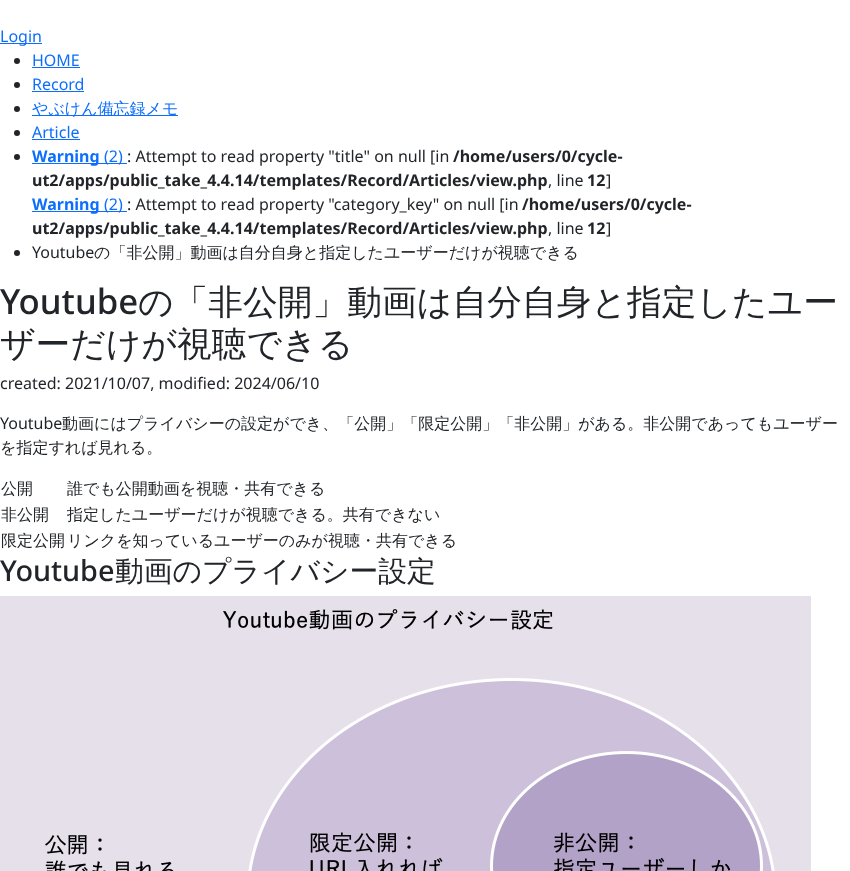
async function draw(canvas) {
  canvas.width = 850
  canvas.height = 871
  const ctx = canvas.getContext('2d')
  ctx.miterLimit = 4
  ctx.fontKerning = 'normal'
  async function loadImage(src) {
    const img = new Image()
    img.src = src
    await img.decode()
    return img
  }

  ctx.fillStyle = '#fff'
  ctx.fillRect(0, 0, 850, 871)
  ctx.fillStyle = '#0d6efd'
  ctx.fillRect(0, 43, 42, 1)
  ctx.font = '16px Noto Sans'
  ctx.fillText('Login', 0, 42)
  ctx.fillStyle = '#212529'
  ctx.beginPath()
  ctx.arc(17, 61, 3, 0, 2 * Math.PI)
  ctx.fill()
  ctx.fillStyle = '#0d6efd'
  ctx.fillText('HOME', 32, 66)
  ctx.fillRect(32, 67, 48, 1)
  ctx.fillStyle = '#212529'
  ctx.beginPath()
  ctx.arc(17, 85, 3, 0, 2 * Math.PI)
  ctx.fill()
  ctx.fillStyle = '#0d6efd'
  ctx.fillText('Record', 32, 90)
  ctx.fillRect(32, 91, 52, 1)
  ctx.fillStyle = '#212529'
  ctx.beginPath()
  ctx.arc(17, 109, 3, 0, 2 * Math.PI)
  ctx.fill()
  ctx.fillStyle = '#0d6efd'
  ctx.fillRect(32, 115, 146, 1)
  ctx.font = '500 16px WenQuanYi Zen Hei'
  ctx.fillText('やぶけん備忘録メモ', 32, 114)
  ctx.fillStyle = '#212529'
  ctx.beginPath()
  ctx.arc(17, 133, 3, 0, 2 * Math.PI)
  ctx.fill()
  ctx.font = '16px Noto Sans'
  ctx.fillStyle = '#0d6efd'
  ctx.fillText('Article', 32, 138)
  ctx.fillRect(32, 139, 48, 1)
  ctx.fillStyle = '#212529'
  ctx.beginPath()
  ctx.arc(17, 157, 3, 0, 2 * Math.PI)
  ctx.fill()
  ctx.fillStyle = '#0d6efd'
  ctx.fillRect(32, 163, 95, 1)
  ctx.font = 'bold 16px Noto Sans'
  ctx.fillText('Warning', 32, 162)
  ctx.font = '16px Noto Sans'
  ctx.fillText('(2)', 104, 162)
  ctx.fillStyle = '#212529'
  ctx.fillText(': Attempt to read property "title" on null [in', 127, 162)
  ctx.font = 'bold 16px Noto Sans'
  ctx.fillText('/home/users/0/cycle-', 453, 162)
  ctx.fillText('ut2/apps/public_take_4.4.14/templates/Record/Articles/view.php', 32, 186)
  ctx.font = '16px Noto Sans'
  ctx.fillText(', line', 548, 186)
  ctx.font = 'bold 16px Noto Sans'
  ctx.fillText('12', 587, 186)
  ctx.font = '16px Noto Sans'
  ctx.fillText(']', 606, 186)
  ctx.fillStyle = '#0d6efd'
  ctx.fillRect(32, 211, 95, 1)
  ctx.font = 'bold 16px Noto Sans'
  ctx.fillText('Warning', 32, 210)
  ctx.font = '16px Noto Sans'
  ctx.fillText('(2)', 104, 210)
  ctx.fillStyle = '#212529'
  ctx.fillText(': Attempt to read property "category_key" on null [in', 127, 210)
  ctx.font = 'bold 16px Noto Sans'
  ctx.fillText('/home/users/0/cycle-', 522, 210)
  ctx.fillText('ut2/apps/public_take_4.4.14/templates/Record/Articles/view.php', 32, 234)
  ctx.font = '16px Noto Sans'
  ctx.fillText(', line', 548, 234)
  ctx.font = 'bold 16px Noto Sans'
  ctx.fillText('12', 587, 234)
  ctx.font = '16px Noto Sans'
  ctx.fillText(']', 606, 234)
  ctx.beginPath()
  ctx.arc(17, 253, 3, 0, 2 * Math.PI)
  ctx.fill()
  ctx.fillText('Youtube', 32, 258)
  ctx.font = '500 16px WenQuanYi Zen Hei'
  ctx.fillText('の「非公開」動画は自分自身と指定したユーザーだけが視聴できる', 94, 258)
  ctx.font = '500 34.75px Noto Sans'
  ctx.fillText('Youtube', 0, 314)
  ctx.font = '500 34.75px WenQuanYi Zen Hei'
  ctx.fillText('の「非公開」動画は自分自身と指定したユー', 138, 314)
  ctx.fillText('ザーだけが視聴できる', 0, 356)
  ctx.font = '16px Noto Sans'
  ctx.fillText('created: 2021/10/07, modified: 2024/06/10', 0, 389)
  ctx.fillText('Youtube', 0, 429)
  ctx.font = '500 16px WenQuanYi Zen Hei'
  ctx.fillText('動画にはプライバシーの設定ができ、「公開」「限定公開」「非公開」がある。非公開であってもユーザー', 62, 429)
  ctx.fillText('を指定すれば見れる。', 0, 453)
  ctx.fillText('公開', 1, 494)
  ctx.fillText('誰でも公開動画を視聴・共有できる', 67, 494)
  ctx.fillText('非公開', 1, 520)
  ctx.fillText('指定したユーザーだけが視聴できる。共有できない', 67, 520)
  ctx.fillText('限定公開', 1, 546)
  ctx.fillText('リンクを知っているユーザーのみが視聴・共有できる', 67, 546)
  ctx.font = '500 28.8px Noto Sans'
  ctx.fillText('Youtube', 0, 581)
  ctx.font = '500 28.8px WenQuanYi Zen Hei'
  ctx.fillText('動画のプライバシー設定', 115, 581)
  ctx.drawImage(await loadImage('image0.png'), 0, 596, 811, 275)
}

draw(document.querySelector('canvas'))
